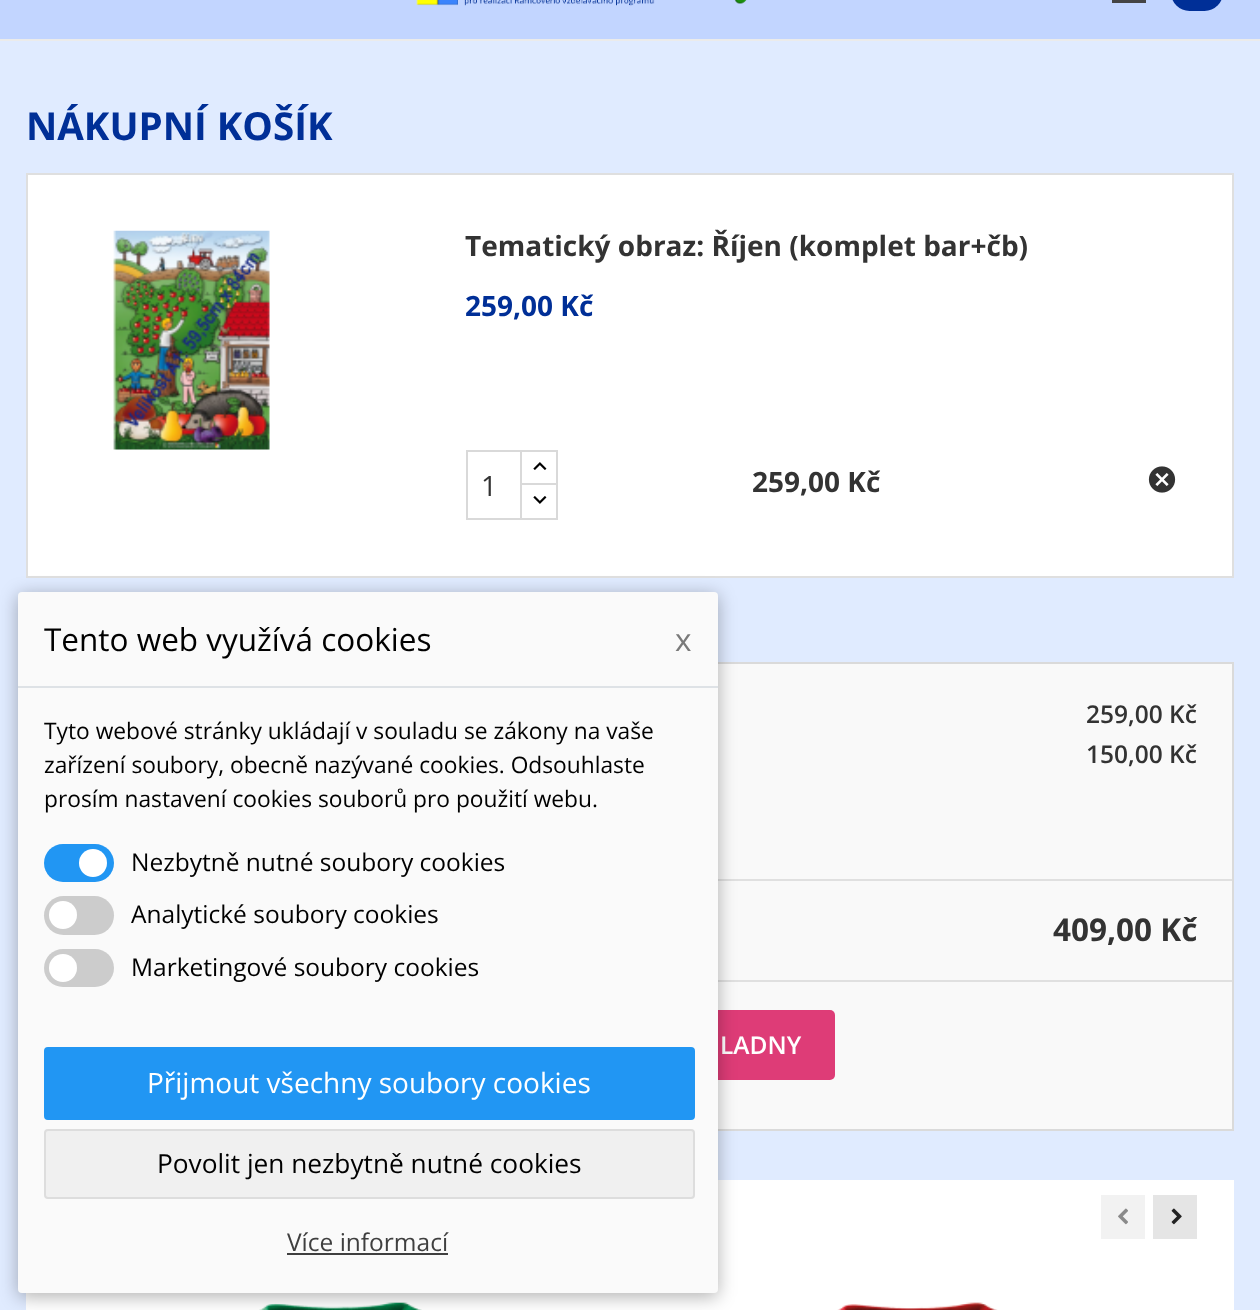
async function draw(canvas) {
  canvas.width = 1260
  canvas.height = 1310
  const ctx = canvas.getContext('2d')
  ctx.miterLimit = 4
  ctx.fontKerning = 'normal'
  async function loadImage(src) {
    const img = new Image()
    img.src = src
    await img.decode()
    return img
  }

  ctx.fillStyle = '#e0ebff'
  ctx.fillRect(0, 0, 1260, 1310)
  ctx.fillStyle = '#c2d5ff'
  ctx.fillRect(0, 0, 1260, 39)
  ctx.drawImage(await loadImage('image0.png'), 416, 0, 331, 6)
  ctx.fillStyle = '#444'
  ctx.fillRect(1112, 0, 34, 3)
  ctx.fillStyle = '#002f97'
  ctx.beginPath()
  ctx.roundRect(1171, -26, 52, 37, 26)
  ctx.fill()
  ctx.fillStyle = '#ebebeb'
  ctx.fillRect(0, 39, 1260, 2)
  ctx.font = 'bold 38.5px Open Sans'
  ctx.fillStyle = '#002f97'
  ctx.fillText('NÁKUPNÍ KOŠÍK', 26, 140)
  ctx.fillStyle = '#fff'
  ctx.beginPath()
  ctx.rect(27, 174, 1206, 403)
  ctx.fill()
  ctx.strokeStyle = '#dfdfdf'
  ctx.lineWidth = 2
  ctx.stroke()
  ctx.drawImage(await loadImage('image1.png'), 113, 230, 157, 220)
  ctx.font = 'bold 28px Open Sans'
  ctx.fillStyle = '#333'
  ctx.fillText('Tematický obraz: Říjen (komplet bar+čb)', 465, 256)
  ctx.fillStyle = '#002f97'
  ctx.fillText('259,00 Kč', 465, 316)
  ctx.strokeStyle = '#d9d9d9'
  ctx.strokeRect(521, 451, 36, 35)
  ctx.fillStyle = '#fff'
  ctx.fillRect(522, 485, 34, 2)
  ctx.strokeRect(521, 484, 36, 35)
  ctx.strokeRect(467, 451, 54, 68)
  ctx.font = '28px Open Sans'
  ctx.fillStyle = '#333'
  ctx.fillText('1', 481, 496)
  ctx.drawImage(await loadImage('image2.png'), 533, 462, 14, 8)
  ctx.drawImage(await loadImage('image3.png'), 533, 496, 14, 8)
  ctx.font = 'bold 28px Open Sans'
  ctx.fillText('259,00 Kč', 752, 492)
  ctx.drawImage(await loadImage('image4.png'), 1148, 466, 28, 27)
  ctx.fillStyle = '#f9f9f9'
  ctx.fillRect(718, 664, 514, 465)
  ctx.strokeStyle = '#dadada'
  ctx.strokeRect(27, 663, 1206, 467)
  ctx.font = '600 24.5px Open Sans'
  ctx.fillStyle = '#333'
  ctx.fillText('259,00 Kč', 1086, 723)
  ctx.fillText('150,00 Kč', 1086, 763)
  ctx.fillStyle = '#e0e0e0'
  ctx.fillRect(718, 879, 514, 2)
  ctx.font = 'bold 31.5px Open Sans'
  ctx.fillStyle = '#333'
  ctx.fillText('409,00 Kč', 1053, 941)
  ctx.fillStyle = '#e0e0e0'
  ctx.fillRect(718, 980, 514, 2)
  ctx.fillStyle = '#de3c77'
  ctx.beginPath()
  ctx.roundRect(425, 1010, 410, 70, 5)
  ctx.fill()
  ctx.font = '600 24.5px Open Sans'
  ctx.fillStyle = '#fff'
  ctx.fillText('LADNY', 720, 1054)
  ctx.fillRect(26, 1180, 1208, 130)
  ctx.fillStyle = '#f2f2f2'
  ctx.fillRect(1101, 1195, 44, 44)
  ctx.drawImage(await loadImage('image5.png'), 1118, 1208, 10, 17)
  ctx.fillStyle = '#e5e5e5'
  ctx.fillRect(1153, 1195, 44, 44)
  ctx.drawImage(await loadImage('image6.png'), 1171, 1208, 11, 17)
  ctx.drawImage(await loadImage('image7.png'), 259, 1302, 163, 8)
  ctx.drawImage(await loadImage('image8.png'), 837, 1302, 161, 8)
  ctx.fillStyle = '#0000004d'
  ctx.filter = 'blur(9px)'
  ctx.beginPath()
  ctx.roundRect(18, 595, 700, 702, 4)
  ctx.fill()
  ctx.filter = 'none'
  ctx.fillStyle = '#fafafa'
  ctx.beginPath()
  ctx.roundRect(18, 592, 700, 701, 4)
  ctx.fill()
  ctx.fillStyle = '#dee2e6'
  ctx.fillRect(18, 686, 700, 2)
  ctx.font = '31.5px Open Sans'
  ctx.fillStyle = '#000'
  ctx.fillText('Tento web využívá cookies', 44, 651)
  ctx.fillStyle = '#7a7a7a'
  ctx.fillText('x', 675, 651)
  ctx.font = '22.75px Open Sans'
  ctx.fillStyle = '#000'
  ctx.fillText('Tyto webové stránky ukládají v souladu se zákony na vaše', 44, 739)
  ctx.fillText('zařízení soubory, obecně nazývané cookies. Odsouhlaste', 44, 773)
  ctx.fillText('prosím nastavení cookies souborů pro použití webu.', 44, 807)
  ctx.fillStyle = '#2196f3'
  ctx.beginPath()
  ctx.roundRect(44, 844, 70, 38, 19)
  ctx.fill()
  ctx.fillStyle = '#fff'
  ctx.beginPath()
  ctx.arc(93, 863, 14, 0, 2 * Math.PI)
  ctx.fill()
  ctx.font = '24.5px Open Sans'
  ctx.fillStyle = '#000'
  ctx.fillText('Nezbytně nutné soubory cookies', 131, 871)
  ctx.fillStyle = '#ccc'
  ctx.beginPath()
  ctx.roundRect(44, 896, 70, 39, 19.5)
  ctx.fill()
  ctx.fillStyle = '#fff'
  ctx.beginPath()
  ctx.arc(63, 915, 14, 0, 2 * Math.PI)
  ctx.fill()
  ctx.fillStyle = '#000'
  ctx.fillText('Analytické soubory cookies', 131, 923)
  ctx.fillStyle = '#ccc'
  ctx.beginPath()
  ctx.roundRect(44, 949, 70, 38, 19)
  ctx.fill()
  ctx.fillStyle = '#fff'
  ctx.beginPath()
  ctx.arc(63, 968, 14, 0, 2 * Math.PI)
  ctx.fill()
  ctx.fillStyle = '#000'
  ctx.fillText('Marketingové soubory cookies', 131, 976)
  ctx.fillStyle = '#2196f3'
  ctx.beginPath()
  ctx.roundRect(45, 1048, 649, 71, 3)
  ctx.fill()
  ctx.strokeStyle = '#2196f3'
  ctx.stroke()
  ctx.font = '28px Open Sans'
  ctx.fillStyle = '#fff'
  ctx.fillText('Přijmout všechny soubory cookies', 147, 1093)
  ctx.fillStyle = '#f0f0f0'
  ctx.beginPath()
  ctx.roundRect(45, 1130, 649, 68, 3)
  ctx.fill()
  ctx.strokeStyle = '#ddd'
  ctx.stroke()
  ctx.font = '26.25px Open Sans'
  ctx.fillStyle = '#000'
  ctx.fillText('Povolit jen nezbytně nutné cookies', 157, 1173)
  ctx.font = '24.5px Open Sans'
  ctx.fillStyle = '#3f3f3f'
  ctx.fillText('Více informací', 287, 1251)
  ctx.fillRect(287, 1253, 161, 2)
}

draw(document.querySelector('canvas'))
